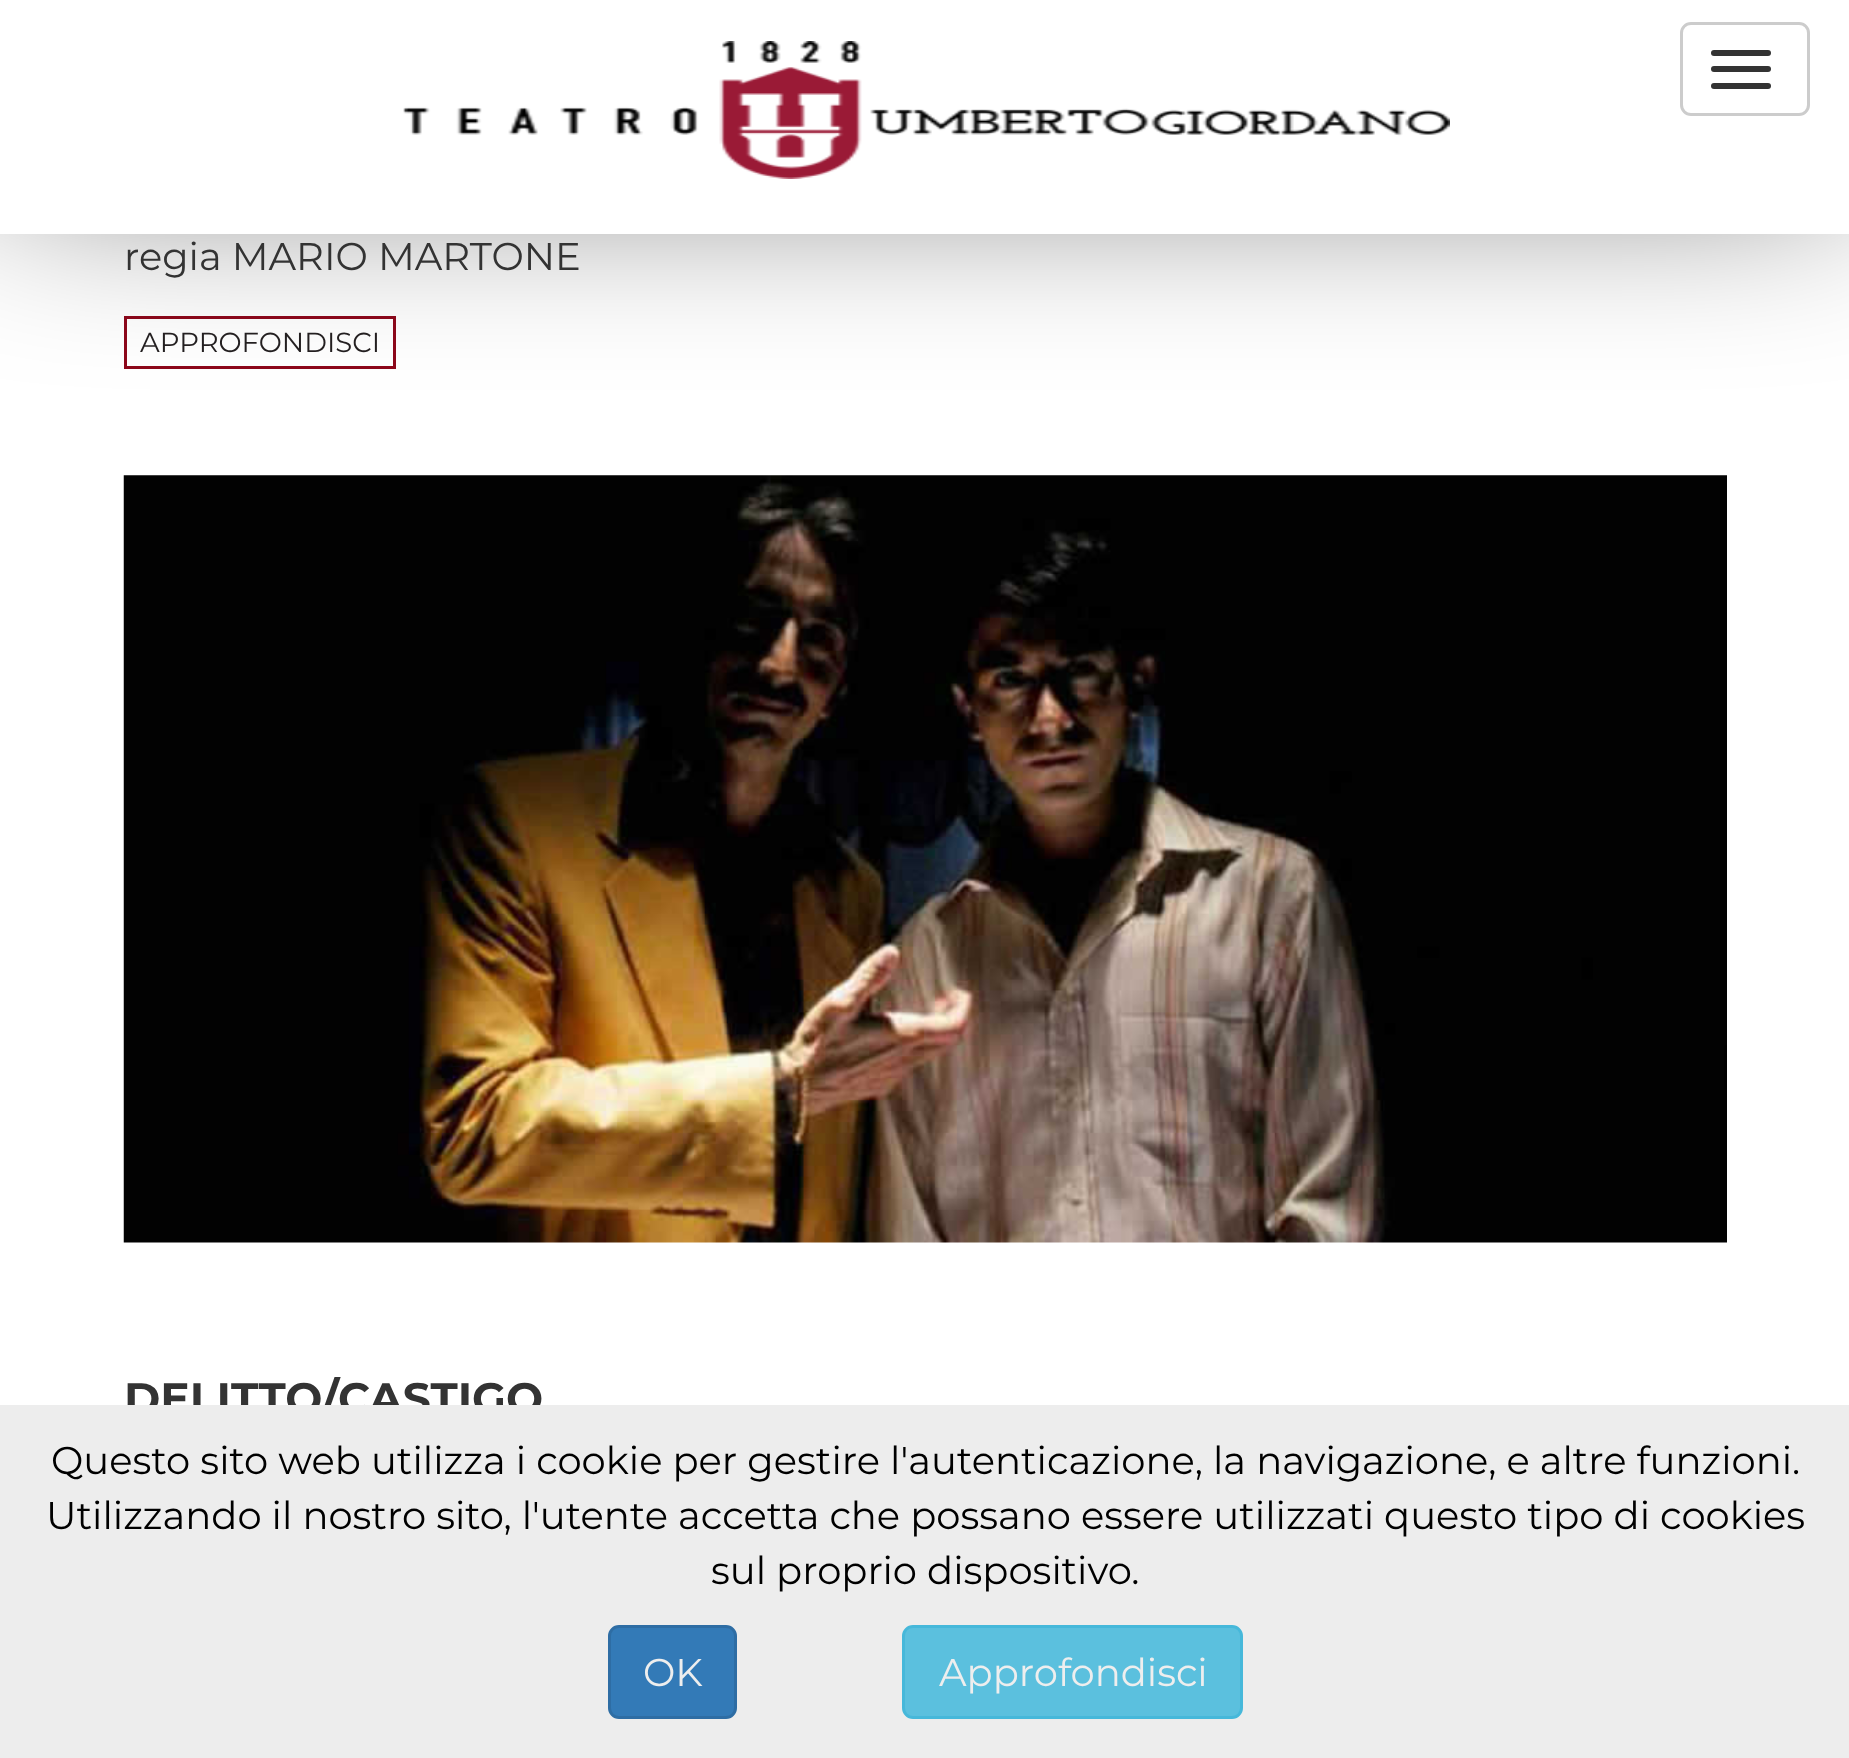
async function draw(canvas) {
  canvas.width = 1849
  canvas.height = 1758
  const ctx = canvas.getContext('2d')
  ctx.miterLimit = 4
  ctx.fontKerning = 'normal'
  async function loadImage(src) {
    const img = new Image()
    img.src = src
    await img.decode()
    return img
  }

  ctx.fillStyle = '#fff'
  ctx.fillRect(0, 0, 1849, 1758)
  ctx.strokeStyle = '#8e081b'
  ctx.lineWidth = 3
  ctx.strokeRect(125.5, 317.5, 269, 50)
  ctx.fillStyle = '#000000bf'
  ctx.filter = 'blur(96px)'
  ctx.beginPath()
  ctx.rect(0, 0, 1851, 165)
  ctx.fill()
  ctx.filter = 'none'
  ctx.fillStyle = '#fff'
  ctx.fillRect(0, 0, 1849, 234)
  ctx.drawImage(await loadImage('image0.png'), 403, 41, 1047, 138)
  ctx.beginPath()
  ctx.roundRect(1681.5, 23.5, 127, 91, 9.5)
  ctx.strokeStyle = '#ccc'
  ctx.stroke()
  ctx.fillStyle = '#333'
  ctx.beginPath()
  ctx.roundRect(1711, 50, 60, 6, 3)
  ctx.fill()
  ctx.beginPath()
  ctx.roundRect(1711, 66, 60, 6, 3)
  ctx.fill()
  ctx.beginPath()
  ctx.roundRect(1711, 83, 60, 6, 3)
  ctx.fill()
  ctx.font = '38.5px Montserrat'
  ctx.fillText('regia MARIO MARTONE', 124, 270)
  ctx.font = '27.5px Montserrat'
  ctx.fillStyle = '#231f20'
  ctx.fillText('APPROFONDISCI', 140, 352)
  ctx.drawImage(await loadImage('image1.png'), 123, 475, 1604, 768)
  ctx.font = 'bold 44px Montserrat'
  ctx.fillStyle = '#333'
  ctx.fillText('DELITTO/CASTIGO', 124, 1414)
  ctx.fillStyle = '#ededed'
  ctx.fillRect(0, 1405, 1849, 353)
  ctx.font = '38.5px Montserrat'
  ctx.fillStyle = '#000'
  ctx.fillText('Questo sito web utilizza i cookie per gestire l\'autenticazione, la navigazione, e altre funzioni.', 51, 1474)
  ctx.fillText('Utilizzando il nostro sito, l\'utente accetta che possano essere utilizzati questo tipo di cookies', 46, 1529)
  ctx.fillText('sul proprio dispositivo.', 711, 1584)
  ctx.fillStyle = '#337ab7'
  ctx.beginPath()
  ctx.roundRect(609.5, 1626.5, 126, 91, 9.5)
  ctx.fill()
  ctx.strokeStyle = '#2e6da4'
  ctx.stroke()
  ctx.fillStyle = '#eee'
  ctx.fillText('OK', 643, 1686)
  ctx.fillStyle = '#5bc0de'
  ctx.beginPath()
  ctx.roundRect(903.5, 1626.5, 338, 91, 9.5)
  ctx.fill()
  ctx.strokeStyle = '#46b8da'
  ctx.stroke()
  ctx.fillStyle = '#eee'
  ctx.fillText('Approfondisci', 939, 1686)
}

draw(document.querySelector('canvas'))
